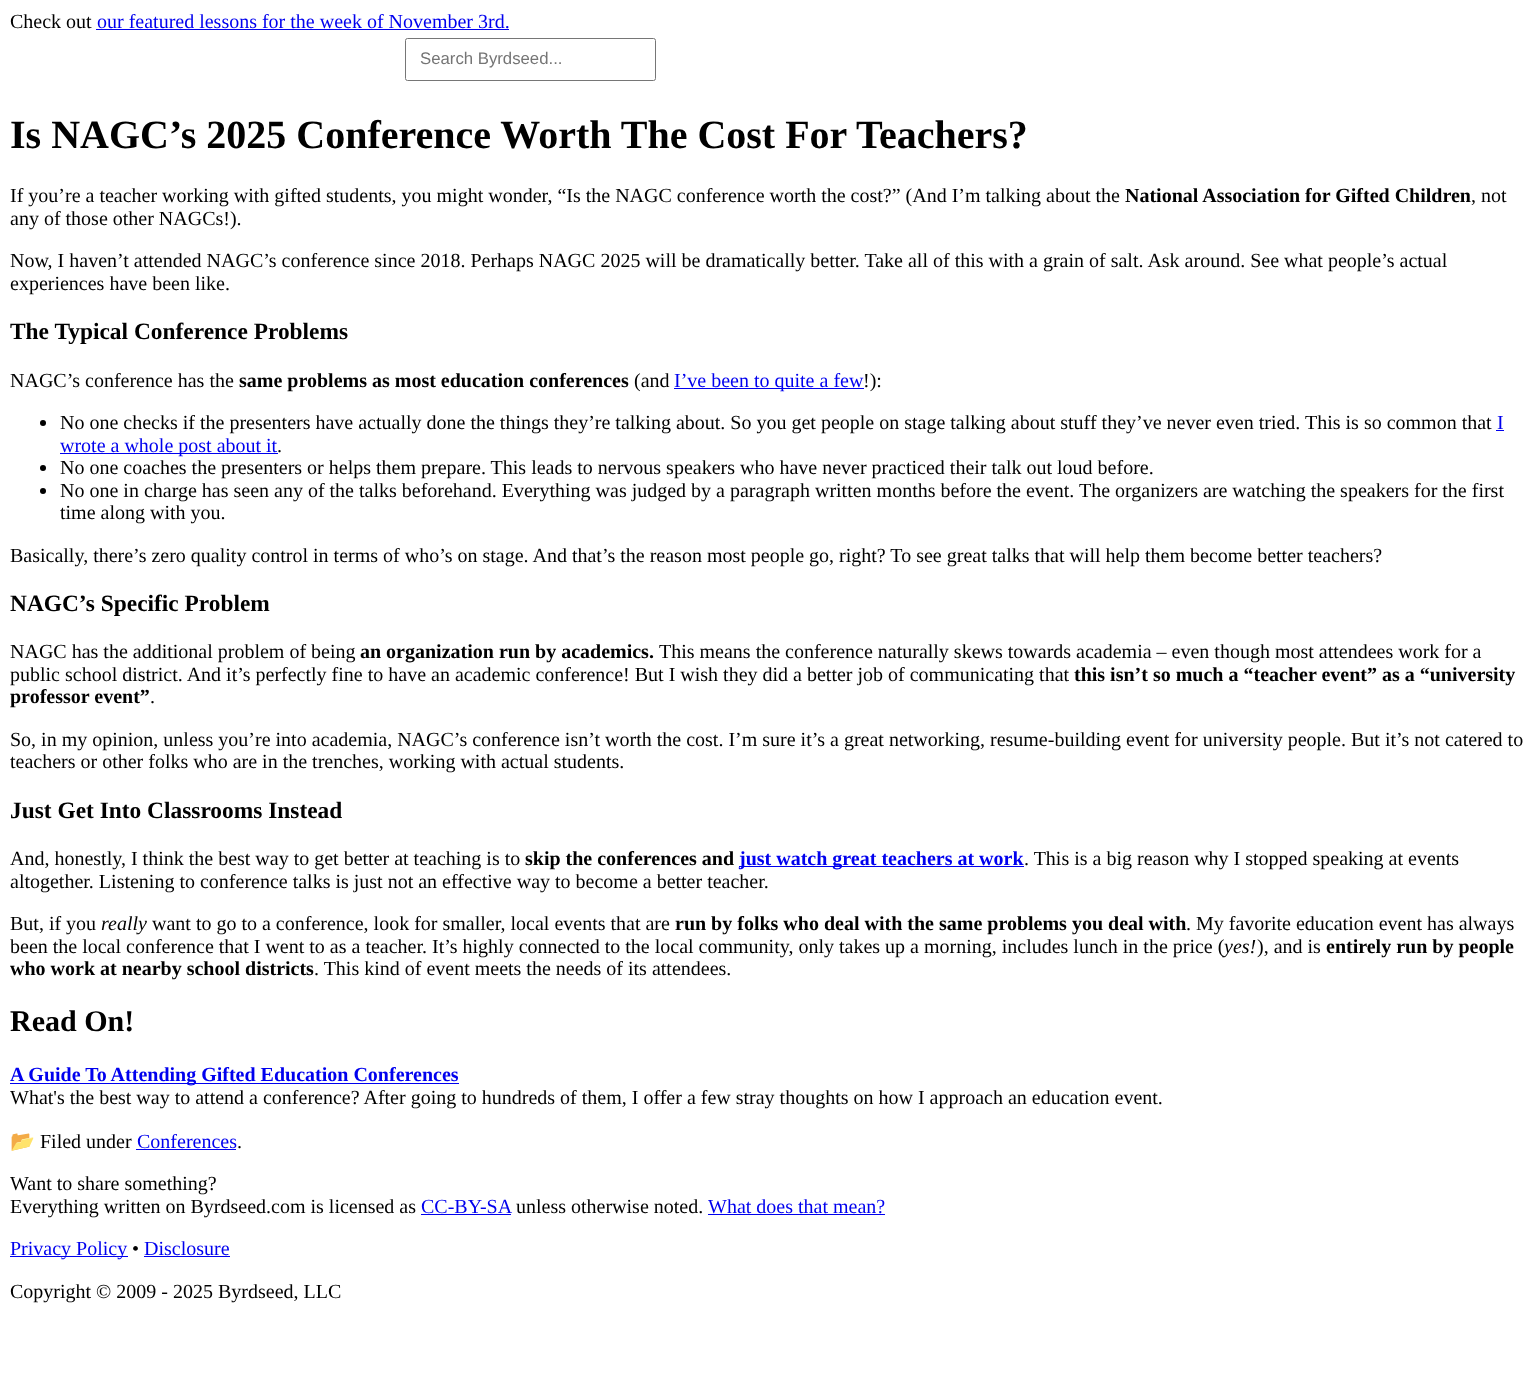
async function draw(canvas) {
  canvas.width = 1536
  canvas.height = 1393
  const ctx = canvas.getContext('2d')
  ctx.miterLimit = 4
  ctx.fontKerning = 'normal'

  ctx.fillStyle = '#fff'
  ctx.fillRect(0, 0, 1536, 1393)
  ctx.font = '20px Liberation Serif'
  ctx.fillStyle = '#000'
  ctx.fillText('Check out', 10, 28)
  ctx.fillStyle = '#00e'
  ctx.fillText('our featured lessons for the week of November 3rd.', 97, 28)
  ctx.fillRect(96, 29, 413, 1)
  ctx.beginPath()
  ctx.roundRect(405.5, 38.5, 250, 42, 2)
  ctx.strokeStyle = '#767676'
  ctx.stroke()
  ctx.font = '16.75px Liberation Sans'
  ctx.fillStyle = '#757575'
  ctx.fillText('Search Byrdseed...', 420, 64)
  ctx.font = 'bold 40px Liberation Serif'
  ctx.fillStyle = '#000'
  ctx.fillText('Is NAGC’s 2025 Conference Worth The Cost For Teachers?', 10, 148)
  ctx.font = '20px Liberation Serif'
  ctx.fillText('If you’re a teacher working with gifted students, you might wonder, “Is the NAGC conference worth the cost?” (And I’m talking about the', 10, 202)
  ctx.font = 'bold 20px Liberation Serif'
  ctx.fillText('National Association for Gifted Children', 1125, 202)
  ctx.font = '20px Liberation Serif'
  ctx.fillText(', not', 1471, 202)
  ctx.fillText('any of those other NAGCs!).', 10, 225)
  ctx.fillText('Now, I haven’t attended NAGC’s conference since 2018. Perhaps NAGC 2025 will be dramatically better. Take all of this with a grain of salt. Ask around. See what people’s actual', 10, 267)
  ctx.fillText('experiences have been like.', 10, 290)
  ctx.font = 'bold 23.4px Liberation Serif'
  ctx.fillText('The Typical Conference Problems', 10, 339)
  ctx.font = '20px Liberation Serif'
  ctx.fillText('NAGC’s conference has the', 10, 387)
  ctx.font = 'bold 20px Liberation Serif'
  ctx.fillText('same problems as most education conferences', 239, 387)
  ctx.font = '20px Liberation Serif'
  ctx.fillText('(and', 634, 387)
  ctx.fillStyle = '#00e'
  ctx.fillRect(674, 388, 190, 1)
  ctx.fillText('I’ve been to quite a few', 674, 387)
  ctx.fillStyle = '#000'
  ctx.fillText('!):', 863, 387)
  ctx.beginPath()
  ctx.arc(43, 423, 3, 0, 2 * Math.PI)
  ctx.fill()
  ctx.fillText('No one checks if the presenters have actually done the things they’re talking about. So you get people on stage talking about stuff they’ve never even tried. This is so common that', 60, 429)
  ctx.fillStyle = '#00e'
  ctx.fillText('I', 1497, 429)
  ctx.fillRect(1496, 430, 8, 1)
  ctx.fillRect(60, 453, 218, 1)
  ctx.fillText('wrote a whole post about it', 60, 452)
  ctx.fillStyle = '#000'
  ctx.fillText('.', 277, 452)
  ctx.beginPath()
  ctx.arc(43, 468, 3, 0, 2 * Math.PI)
  ctx.fill()
  ctx.fillText('No one coaches the presenters or helps them prepare. This leads to nervous speakers who have never practiced their talk out loud before.', 60, 474)
  ctx.beginPath()
  ctx.arc(43, 491, 3, 0, 2 * Math.PI)
  ctx.fill()
  ctx.fillText('No one in charge has seen any of the talks beforehand. Everything was judged by a paragraph written months before the event. The organizers are watching the speakers for the first', 60, 497)
  ctx.fillText('time along with you.', 60, 519)
  ctx.fillText('Basically, there’s zero quality control in terms of who’s on stage. And that’s the reason most people go, right? To see great talks that will help them become better teachers?', 10, 562)
  ctx.font = 'bold 23.4px Liberation Serif'
  ctx.fillText('NAGC’s Specific Problem', 10, 611)
  ctx.font = '20px Liberation Serif'
  ctx.fillText('NAGC has the additional problem of being', 10, 658)
  ctx.font = 'bold 20px Liberation Serif'
  ctx.fillText('an organization run by academics.', 360, 658)
  ctx.font = '20px Liberation Serif'
  ctx.fillText('This means the conference naturally skews towards academia – even though most attendees work for a', 659, 658)
  ctx.fillText('public school district. And it’s perfectly fine to have an academic conference! But I wish they did a better job of communicating that', 10, 681)
  ctx.font = 'bold 20px Liberation Serif'
  ctx.fillText('this isn’t so much a “teacher event” as a “university', 1074, 681)
  ctx.fillText('professor event”', 10, 703)
  ctx.font = '20px Liberation Serif'
  ctx.fillText('.', 150, 703)
  ctx.fillText('So, in my opinion, unless you’re into academia, NAGC’s conference isn’t worth the cost. I’m sure it’s a great networking, resume-building event for university people. But it’s not catered to', 10, 746)
  ctx.fillText('teachers or other folks who are in the trenches, working with actual students.', 10, 768)
  ctx.font = 'bold 23.4px Liberation Serif'
  ctx.fillText('Just Get Into Classrooms Instead', 10, 818)
  ctx.font = '20px Liberation Serif'
  ctx.fillText('And, honestly, I think the best way to get better at teaching is to', 10, 865)
  ctx.font = 'bold 20px Liberation Serif'
  ctx.fillText('skip the conferences and', 525, 865)
  ctx.fillStyle = '#00e'
  ctx.fillRect(739, 866, 285, 1)
  ctx.fillText('just watch great teachers at work', 739, 865)
  ctx.font = '20px Liberation Serif'
  ctx.fillStyle = '#000'
  ctx.fillText('. This is a big reason why I stopped speaking at events', 1024, 865)
  ctx.fillText('altogether. Listening to conference talks is just not an effective way to become a better teacher.', 10, 888)
  ctx.fillText('But, if you', 10, 930)
  ctx.font = 'italic 20px Liberation Serif'
  ctx.fillText('really', 101, 930)
  ctx.font = '20px Liberation Serif'
  ctx.fillText('want to go to a conference, look for smaller, local events that are', 152, 930)
  ctx.font = 'bold 20px Liberation Serif'
  ctx.fillText('run by folks who deal with the same problems you deal with', 675, 930)
  ctx.font = '20px Liberation Serif'
  ctx.fillText('. My favorite education event has always', 1186, 930)
  ctx.fillText('been the local conference that I went to as a teacher. It’s highly connected to the local community, only takes up a morning, includes lunch in the price (', 10, 953)
  ctx.font = 'italic 20px Liberation Serif'
  ctx.fillText('yes!', 1224, 953)
  ctx.font = '20px Liberation Serif'
  ctx.fillText('), and is', 1257, 953)
  ctx.font = 'bold 20px Liberation Serif'
  ctx.fillText('entirely run by people', 1326, 953)
  ctx.fillText('who work at nearby school districts', 10, 975)
  ctx.font = '20px Liberation Serif'
  ctx.fillText('. This kind of event meets the needs of its attendees.', 314, 975)
  ctx.font = 'bold 30px Liberation Serif'
  ctx.fillText('Read On!', 10, 1031)
  ctx.fillStyle = '#00e'
  ctx.fillRect(10, 1083, 449, 1)
  ctx.font = 'bold 20px Liberation Serif'
  ctx.fillText('A Guide To Attending Gifted Education Conferences', 10, 1081)
  ctx.font = '20px Liberation Serif'
  ctx.fillStyle = '#000'
  ctx.fillText('What\'s the best way to attend a conference? After going to hundreds of them, I offer a few stray thoughts on how I approach an education event.', 10, 1104)
  ctx.font = '20px Noto Color Emoji'
  ctx.fillText('📂', 10, 1148)
  ctx.font = '20px Liberation Serif'
  ctx.fillText('Filed under', 40, 1148)
  ctx.fillStyle = '#00e'
  ctx.fillText('Conferences', 137, 1148)
  ctx.fillRect(136, 1149, 100, 1)
  ctx.fillStyle = '#000'
  ctx.fillText('.', 237, 1148)
  ctx.fillText('Want to share something?', 10, 1190)
  ctx.fillText('Everything written on Byrdseed.com is licensed as', 10, 1213)
  ctx.fillStyle = '#00e'
  ctx.fillText('CC-BY-SA', 421, 1213)
  ctx.fillRect(421, 1214, 90, 1)
  ctx.fillStyle = '#000'
  ctx.fillText('unless otherwise noted.', 516, 1213)
  ctx.fillStyle = '#00e'
  ctx.fillText('What does that mean?', 708, 1213)
  ctx.fillRect(708, 1214, 177, 1)
  ctx.fillRect(10, 1256, 118, 1)
  ctx.fillText('Privacy Policy', 10, 1255)
  ctx.fillStyle = '#000'
  ctx.fillText('•', 132, 1255)
  ctx.fillStyle = '#00e'
  ctx.fillText('Disclosure', 144, 1255)
  ctx.fillRect(144, 1256, 86, 1)
  ctx.fillStyle = '#000'
  ctx.fillText('Copyright © 2009 - 2025 Byrdseed, LLC', 10, 1298)
}

draw(document.querySelector('canvas'))
